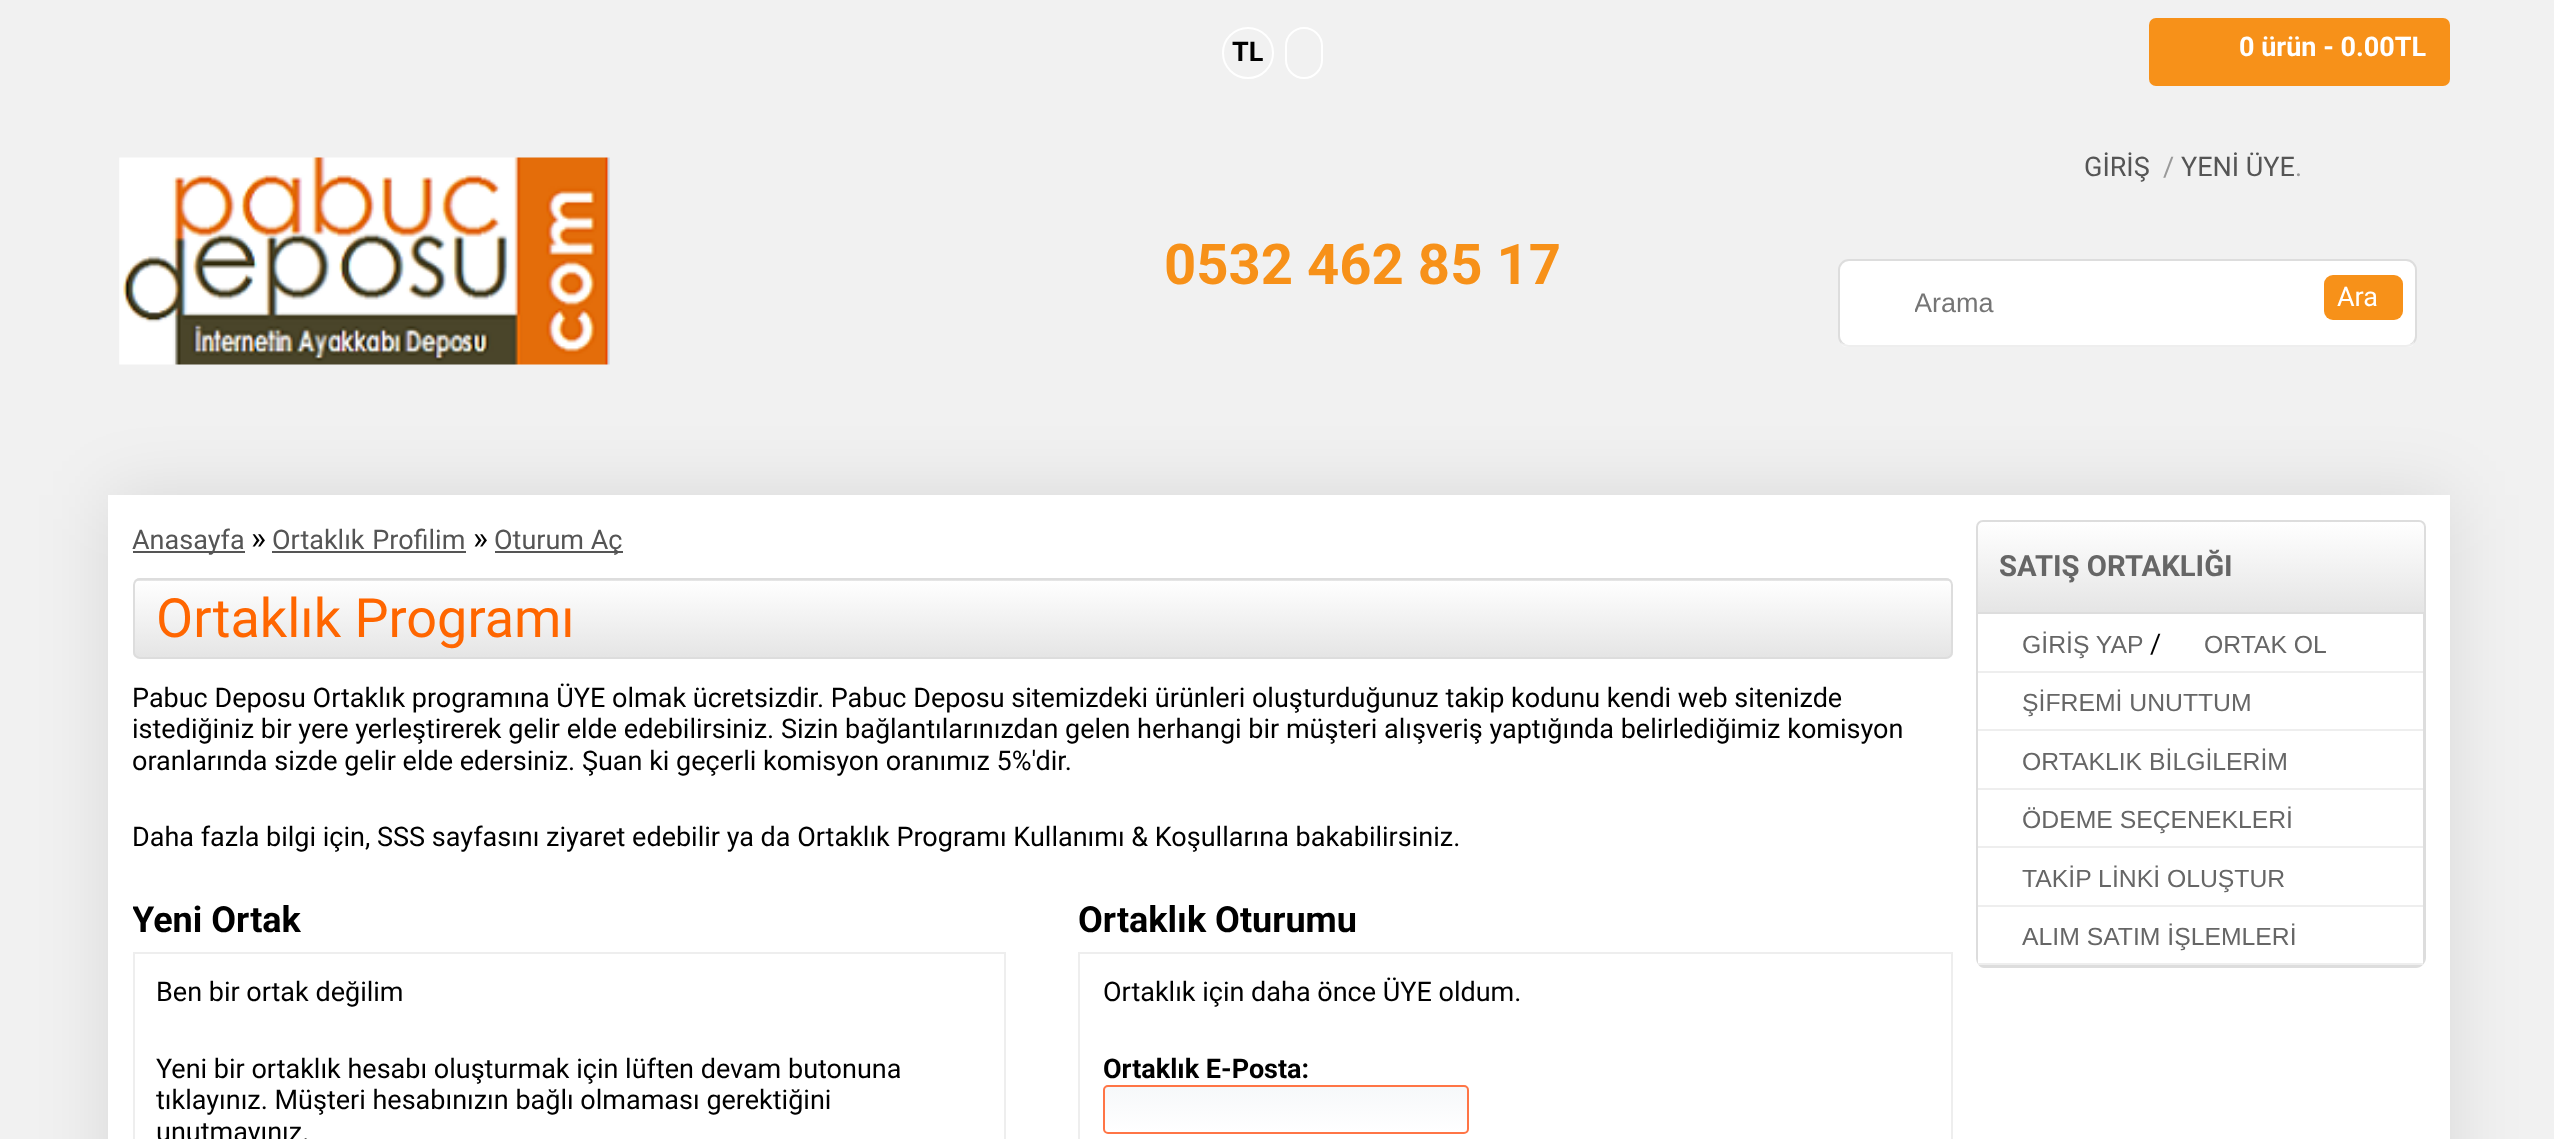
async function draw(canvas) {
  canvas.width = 2554
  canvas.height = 1139
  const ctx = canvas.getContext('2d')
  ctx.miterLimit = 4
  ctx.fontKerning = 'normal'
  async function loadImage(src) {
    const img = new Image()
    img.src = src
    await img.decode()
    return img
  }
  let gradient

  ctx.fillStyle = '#f1f1f1'
  ctx.fillRect(0, 0, 2554, 1139)
  ctx.beginPath()
  ctx.arc(1248, 53, 25, 0, 2 * Math.PI)
  ctx.strokeStyle = '#fff'
  ctx.lineWidth = 2
  ctx.stroke()
  ctx.font = 'bold 27px Roboto'
  ctx.fillStyle = '#000'
  ctx.fillText('TL', 1232, 61)
  ctx.beginPath()
  ctx.roundRect(1286, 28, 36, 50, 18)
  ctx.stroke()
  ctx.fillStyle = '#f79119'
  ctx.beginPath()
  ctx.roundRect(2149, 18, 301, 68, 7)
  ctx.fill()
  ctx.fillStyle = '#fff'
  ctx.fillText('0 ürün - 0.00TL', 2239, 56)
  ctx.drawImage(await loadImage('image0.png'), 119, 157, 491, 208)
  ctx.font = 'bold 56.25px Roboto'
  ctx.fillStyle = '#f79119'
  ctx.fillText('0532 462 85 17', 1164, 284)
  ctx.font = '27px Roboto'
  ctx.fillStyle = '#555'
  ctx.fillText('GİRİŞ', 2084, 176)
  ctx.fillStyle = '#999'
  ctx.fillText('/', 2163, 176)
  ctx.fillStyle = '#555'
  ctx.fillText('YENİ ÜYE', 2181, 176)
  ctx.fillStyle = '#999'
  ctx.fillText('.', 2295, 176)
  ctx.fillStyle = '#fff'
  ctx.beginPath()
  ctx.roundRect(1839, 260, 577, 86, 10)
  ctx.fill()
  ctx.strokeStyle = '#ddd'
  ctx.stroke()
  ctx.fillStyle = '#ffffff80'
  ctx.beginPath()
  ctx.moveTo(1841, 342)
  ctx.bezierCurveTo(1841, 345, 1843, 347, 1846, 347)
  ctx.lineTo(2409, 347)
  ctx.bezierCurveTo(2412, 347, 2414, 345, 2414, 342)
  ctx.lineTo(2414, 341)
  ctx.bezierCurveTo(2413, 343, 2412, 344, 2410, 344)
  ctx.lineTo(1845, 344)
  ctx.bezierCurveTo(1843, 344, 1842, 343, 1841, 342)
  ctx.closePath()
  ctx.fill()
  ctx.save()
  ctx.beginPath()
  ctx.rect(1915, 288, 364, 32)
  ctx.clip()
  ctx.font = '27px Liberation Sans'
  ctx.fillStyle = '#757575'
  ctx.fillText('Arama', 1914, 312)
  ctx.restore()
  ctx.fillStyle = '#f79119'
  ctx.beginPath()
  ctx.roundRect(2324, 275, 79, 45, 9)
  ctx.fill()
  ctx.fillStyle = '#fff'
  ctx.fillText('Ara', 2337, 306)
  ctx.fillStyle = '#0000001a'
  ctx.filter = 'blur(36px)'
  ctx.beginPath()
  ctx.rect(108, 495, 2342, 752)
  ctx.fill()
  ctx.filter = 'none'
  ctx.fillStyle = '#fff'
  ctx.fillRect(108, 495, 2342, 644)
  ctx.fillStyle = '#555'
  ctx.fillRect(133, 551, 112, 2)
  ctx.fillText('Anasayfa', 132, 549)
  ctx.font = '32px Roboto'
  ctx.fillStyle = '#000'
  ctx.fillText('»', 251, 549)
  ctx.wordSpacing = '1px'
  ctx.font = '27px Roboto'
  ctx.fillStyle = '#555'
  ctx.fillText('Ortaklık Profilim', 272, 549)
  ctx.fillRect(272, 551, 194, 2)
  ctx.wordSpacing = '0px'
  ctx.font = '32px Roboto'
  ctx.fillStyle = '#000'
  ctx.fillText('»', 473, 549)
  ctx.fillStyle = '#555'
  ctx.fillRect(495, 551, 128, 2)
  ctx.font = '27px Roboto'
  ctx.fillText('Oturum Aç', 494, 549)
  ctx.save()
  ctx.beginPath()
  ctx.roundRect(133, 578, 1820, 81, 7)
  ctx.clip()
  gradient = ctx.createLinearGradient(1043, 504, 1043, 581)
  gradient.addColorStop(0, '#fff')
  gradient.addColorStop(1, '#e5e5e5')
  ctx.fillStyle = gradient
  ctx.fillRect(133, 578, 1820, 3)
  gradient = ctx.createLinearGradient(1043, 580, 1043, 657)
  gradient.addColorStop(0, '#fff')
  gradient.addColorStop(1, '#e5e5e5')
  ctx.fillStyle = gradient
  ctx.fillRect(133, 581, 1820, 76)
  ctx.restore()
  ctx.beginPath()
  ctx.roundRect(134, 579, 1818, 79, 6)
  ctx.stroke()
  ctx.font = '54px Roboto'
  ctx.fillStyle = '#f60'
  ctx.fillText('Ortaklık Programı', 156, 637)
  ctx.font = '27px Roboto'
  ctx.fillStyle = '#000'
  ctx.fillText('Pabuc Deposu Ortaklık programına ÜYE olmak ücretsizdir. Pabuc Deposu sitemizdeki ürünleri oluşturduğunuz takip kodunu kendi web sitenizde', 132, 707)
  ctx.fillText('istediğiniz bir yere yerleştirerek gelir elde edebilirsiniz. Sizin bağlantılarınızdan gelen herhangi bir müşteri alışveriş yaptığında belirlediğimiz komisyon', 132, 738)
  ctx.fillText('oranlarında sizde gelir elde edersiniz. Şuan ki geçerli komisyon oranımız 5%\'dir.', 132, 770)
  ctx.fillText('Daha fazla bilgi için, SSS sayfasını ziyaret edebilir ya da Ortaklık Programı Kullanımı & Koşullarına bakabilirsiniz.', 132, 846)
  ctx.save()
  ctx.beginPath()
  ctx.rect(133, 898, 1820, 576)
  ctx.clip()
  ctx.font = 'bold 36px Roboto'
  ctx.fillText('Yeni Ortak', 132, 932)
  ctx.restore()
  ctx.strokeStyle = '#eee'
  ctx.strokeRect(134, 953, 871, 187)
  ctx.fillText('Ben bir ortak değilim', 156, 1001)
  ctx.fillText('Yeni bir ortaklık hesabı oluşturmak için lüften devam butonuna', 156, 1078)
  ctx.fillText('tıklayınız. Müşteri hesabınızın bağlı olmaması gerektiğini', 156, 1109)
  ctx.fillText('unutmayınız.', 156, 1141)
  ctx.font = 'bold 36px Roboto'
  ctx.fillText('Ortaklık Oturumu', 1078, 932)
  ctx.strokeRect(1079, 953, 873, 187)
  ctx.font = '27px Roboto'
  ctx.fillText('Ortaklık için daha önce ÜYE oldum.', 1103, 1001)
  ctx.font = 'bold 27px Roboto'
  ctx.fillText('Ortaklık E-Posta:', 1103, 1078)
  ctx.save()
  ctx.beginPath()
  ctx.roundRect(1103, 1085, 366, 49, 5)
  ctx.clip()
  gradient = ctx.createLinearGradient(1286, 1087, 1286, 1132)
  gradient.addColorStop(0, '#f6f8fa')
  gradient.addColorStop(1, '#fff')
  ctx.fillStyle = gradient
  ctx.fillRect(1103, 1087, 366, 45)
  ctx.restore()
  ctx.beginPath()
  ctx.roundRect(1104, 1086, 364, 47, 4)
  ctx.strokeStyle = '#ff7546'
  ctx.stroke()
  ctx.save()
  ctx.beginPath()
  ctx.roundRect(1976, 520, 450, 94, [7, 7, 0, 0])
  ctx.clip()
  gradient = ctx.createLinearGradient(2201, 522, 2201, 612)
  gradient.addColorStop(0, '#fff')
  gradient.addColorStop(1, '#e5e5e5')
  ctx.fillStyle = gradient
  ctx.fillRect(1976, 522, 450, 90)
  ctx.restore()
  ctx.beginPath()
  ctx.roundRect(1977, 521, 448, 92, [6, 6, 0, 0])
  ctx.strokeStyle = '#ddd'
  ctx.stroke()
  ctx.font = 'bold 29.25px Roboto'
  ctx.fillStyle = '#666'
  ctx.fillText('SATIŞ ORTAKLIĞI', 1999, 576)
  ctx.fillStyle = '#ddd'
  ctx.beginPath()
  ctx.moveTo(1976, 614)
  ctx.lineTo(2426, 614)
  ctx.lineTo(2426, 958)
  ctx.bezierCurveTo(2426, 963, 2421, 968, 2416, 968)
  ctx.lineTo(1984, 968)
  ctx.bezierCurveTo(1980, 968, 1976, 963, 1976, 958)
  ctx.closePath()
  ctx.moveTo(1978, 614)
  ctx.lineTo(2423, 614)
  ctx.lineTo(2423, 958)
  ctx.bezierCurveTo(2423, 962, 2420, 965, 2416, 965)
  ctx.lineTo(1984, 965)
  ctx.bezierCurveTo(1981, 965, 1978, 962, 1978, 958)
  ctx.closePath()
  ctx.fill('evenodd')
  ctx.fillStyle = '#fff'
  ctx.fillRect(1978, 959, 445, 4)
  ctx.fillStyle = '#eee'
  ctx.fillRect(1978, 671, 445, 2)
  ctx.font = '24.75px Liberation Sans'
  ctx.fillStyle = '#666'
  ctx.fillText('GİRİŞ YAP', 2022, 653)
  ctx.font = '27px Roboto'
  ctx.fillStyle = '#000'
  ctx.fillText('/', 2150, 653)
  ctx.font = '24.75px Liberation Sans'
  ctx.fillStyle = '#666'
  ctx.fillText('ORTAK OL', 2204, 653)
  ctx.fillStyle = '#eee'
  ctx.fillRect(1978, 729, 445, 2)
  ctx.fillStyle = '#666'
  ctx.fillText('ŞİFREMİ UNUTTUM', 2022, 711)
  ctx.fillStyle = '#eee'
  ctx.fillRect(1978, 788, 445, 2)
  ctx.fillStyle = '#666'
  ctx.fillText('ORTAKLIK BİLGİLERİM', 2022, 770)
  ctx.fillStyle = '#eee'
  ctx.fillRect(1978, 846, 445, 2)
  ctx.fillStyle = '#666'
  ctx.fillText('ÖDEME SEÇENEKLERİ', 2022, 828)
  ctx.fillStyle = '#eee'
  ctx.fillRect(1978, 905, 445, 2)
  ctx.fillStyle = '#666'
  ctx.fillText('TAKİP LİNKİ OLUŞTUR', 2022, 887)
  ctx.fillStyle = '#eee'
  ctx.fillRect(1978, 963, 445, 2)
  ctx.fillStyle = '#666'
  ctx.fillText('ALIM SATIM İŞLEMLERİ', 2022, 945)
}

draw(document.querySelector('canvas'))
